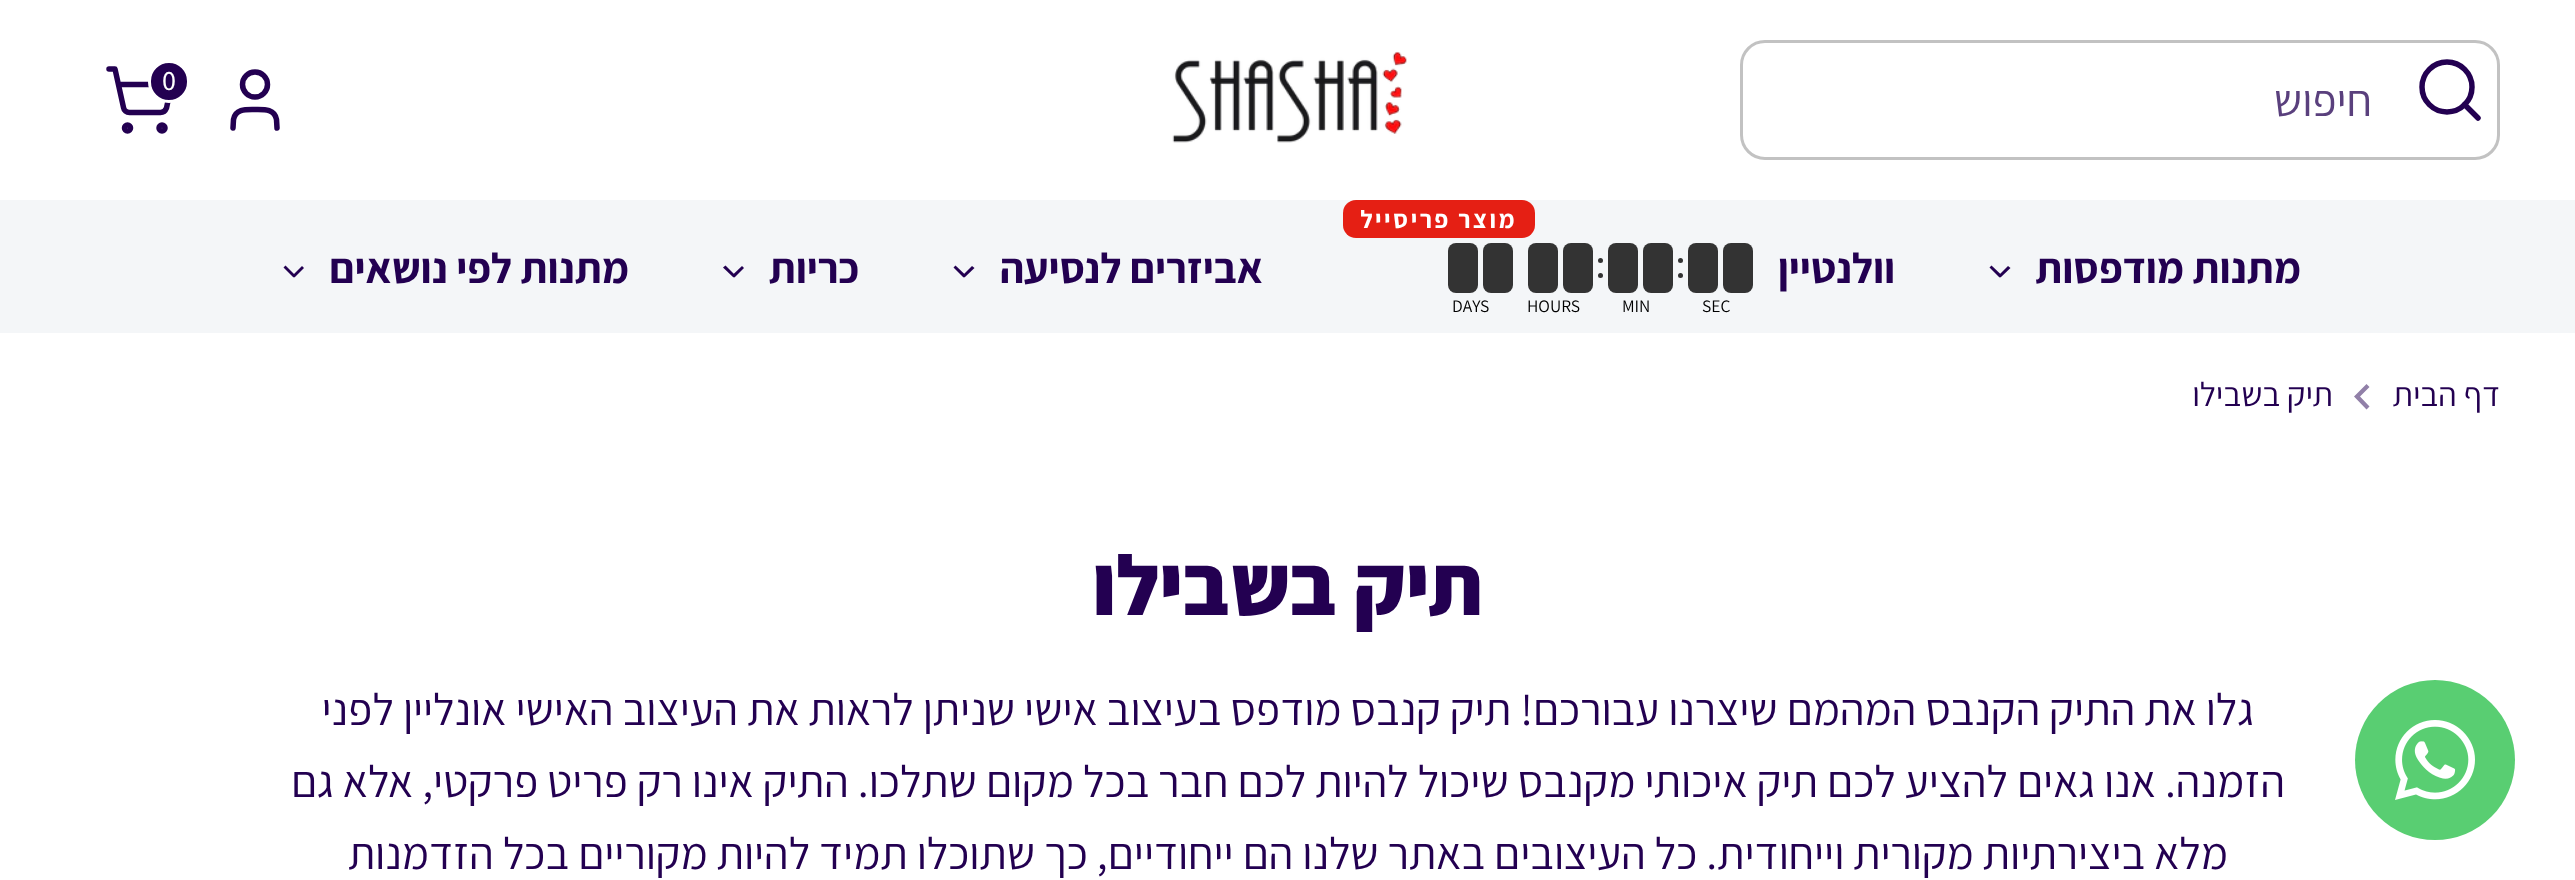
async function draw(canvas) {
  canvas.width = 2575
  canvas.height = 880
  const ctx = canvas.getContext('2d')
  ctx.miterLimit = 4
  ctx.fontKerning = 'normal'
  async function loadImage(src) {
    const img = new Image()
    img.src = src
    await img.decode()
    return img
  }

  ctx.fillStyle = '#fff'
  ctx.fillRect(0, 0, 2575, 880)
  ctx.drawImage(await loadImage('image0.png'), 1172, 51, 235, 92)
  ctx.beginPath()
  ctx.moveTo(277, 128)
  ctx.lineTo(276.5, 119.5)
  ctx.bezierCurveTo(274.5, 108.5, 263.5, 109.5, 255, 109.5)
  ctx.bezierCurveTo(246.5, 109.5, 235.5, 108.5, 233.5, 119.5)
  ctx.lineTo(233, 128)
  ctx.strokeStyle = '#230051'
  ctx.lineWidth = 5.5
  ctx.lineCap = 'round'
  ctx.lineJoin = 'round'
  ctx.stroke()
  ctx.beginPath()
  ctx.arc(255, 84.5, 12.5, 0, 2 * Math.PI)
  ctx.stroke()
  ctx.beginPath()
  ctx.arc(127.5, 128, 3, 0, 2 * Math.PI)
  ctx.stroke()
  ctx.beginPath()
  ctx.arc(162, 128, 3, 0, 2 * Math.PI)
  ctx.stroke()
  ctx.beginPath()
  ctx.moveTo(109, 69)
  ctx.lineTo(115, 69)
  ctx.lineTo(123.5, 107.5)
  ctx.bezierCurveTo(124, 110.5, 126.5, 112.5, 129.5, 112.5)
  ctx.lineTo(160.5, 112.5)
  ctx.bezierCurveTo(163, 112.5, 165.5, 110.5, 166.5, 108)
  ctx.lineTo(171.5, 84.5)
  ctx.lineTo(118.5, 84.5)
  ctx.stroke()
  ctx.fillStyle = '#230051'
  ctx.beginPath()
  ctx.roundRect(149.5, 61.5, 39, 40, 19.5)
  ctx.fill()
  ctx.strokeStyle = '#fff'
  ctx.lineWidth = 3
  ctx.lineJoin = 'miter'
  ctx.stroke()
  ctx.font = '500 28px Assistant'
  ctx.fillStyle = '#fff'
  ctx.fillText('0', 162, 90)
  ctx.beginPath()
  ctx.roundRect(1741.5, 41.5, 757, 117, 23.5)
  ctx.strokeStyle = '#c2c2c2'
  ctx.stroke()
  ctx.beginPath()
  ctx.arc(2447, 87, 25, 0, 2 * Math.PI)
  ctx.strokeStyle = '#230051'
  ctx.lineWidth = 5.5
  ctx.stroke()
  ctx.beginPath()
  ctx.moveTo(2478, 118)
  ctx.lineTo(2464.5, 104.5)
  ctx.lineJoin = 'round'
  ctx.stroke()
  ctx.direction = 'rtl'
  ctx.font = '45px Assistant'
  ctx.fillStyle = '#5a407d'
  ctx.fillText('חיפוש', 2372, 116)
  ctx.fillStyle = '#f4f6f8'
  ctx.fillRect(0, 200, 2575, 133)
  ctx.font = 'bold 42.5px Assistant'
  ctx.fillStyle = '#230051'
  ctx.fillText('מתנות מודפסות', 2301, 283)
  ctx.beginPath()
  ctx.moveTo(2008, 266)
  ctx.lineTo(2010.5, 268)
  ctx.lineTo(2000.5, 277.5)
  ctx.lineTo(1998.5, 275.5)
  ctx.closePath()
  ctx.fill()
  ctx.beginPath()
  ctx.moveTo(1991.5, 265.5)
  ctx.lineTo(2002, 275.5)
  ctx.lineTo(1999.5, 277.5)
  ctx.lineTo(1989.5, 267.5)
  ctx.closePath()
  ctx.fill()
  ctx.fillStyle = '#e51f14'
  ctx.beginPath()
  ctx.roundRect(1343, 200, 192, 38, 13)
  ctx.fill()
  ctx.letterSpacing = '2.5px'
  ctx.font = 'bold 25px Assistant'
  ctx.fillStyle = '#fff'
  ctx.fillText('מוצר פריסייל', 1517, 228)
  ctx.letterSpacing = '0px'
  ctx.font = 'bold 42.5px Assistant'
  ctx.fillStyle = '#230051'
  ctx.fillText('וולנטיין', 1895, 283)
  ctx.fillStyle = '#333'
  ctx.beginPath()
  ctx.roundRect(1723, 243, 30, 25, [8, 8, 0, 0])
  ctx.fill()
  ctx.beginPath()
  ctx.roundRect(1723, 268, 30, 25, [0, 0, 8, 8])
  ctx.fill()
  ctx.beginPath()
  ctx.roundRect(1688, 243, 30, 25, [8, 8, 0, 0])
  ctx.fill()
  ctx.beginPath()
  ctx.roundRect(1688, 268, 30, 25, [0, 0, 8, 8])
  ctx.fill()
  ctx.beginPath()
  ctx.roundRect(1643, 243, 30, 25, [8, 8, 0, 0])
  ctx.fill()
  ctx.beginPath()
  ctx.roundRect(1643, 268, 30, 25, [0, 0, 8, 8])
  ctx.fill()
  ctx.beginPath()
  ctx.roundRect(1608, 243, 30, 25, [8, 8, 0, 0])
  ctx.fill()
  ctx.beginPath()
  ctx.roundRect(1608, 268, 30, 25, [0, 0, 8, 8])
  ctx.fill()
  ctx.beginPath()
  ctx.roundRect(1563, 243, 30, 25, [8, 8, 0, 0])
  ctx.fill()
  ctx.beginPath()
  ctx.roundRect(1563, 268, 30, 25, [0, 0, 8, 8])
  ctx.fill()
  ctx.beginPath()
  ctx.roundRect(1528, 243, 30, 25, [8, 8, 0, 0])
  ctx.fill()
  ctx.beginPath()
  ctx.roundRect(1528, 268, 30, 25, [0, 0, 8, 8])
  ctx.fill()
  ctx.beginPath()
  ctx.roundRect(1483, 243, 30, 25, [8, 8, 0, 0])
  ctx.fill()
  ctx.beginPath()
  ctx.roundRect(1483, 268, 30, 25, [0, 0, 8, 8])
  ctx.fill()
  ctx.beginPath()
  ctx.roundRect(1448, 243, 30, 25, [8, 8, 0, 0])
  ctx.fill()
  ctx.beginPath()
  ctx.roundRect(1448, 268, 30, 25, [0, 0, 8, 8])
  ctx.fill()
  ctx.beginPath()
  ctx.arc(1680.5, 260.5, 2.5, 0, 2 * Math.PI)
  ctx.fill()
  ctx.beginPath()
  ctx.arc(1680.5, 275.5, 2.5, 0, 2 * Math.PI)
  ctx.fill()
  ctx.direction = 'ltr'
  ctx.font = '17.5px Assistant'
  ctx.fillStyle = '#000'
  ctx.fillText('SEC', 1702, 312)
  ctx.fillStyle = '#333'
  ctx.beginPath()
  ctx.arc(1600.5, 260.5, 2.5, 0, 2 * Math.PI)
  ctx.fill()
  ctx.beginPath()
  ctx.arc(1600.5, 275.5, 2.5, 0, 2 * Math.PI)
  ctx.fill()
  ctx.fillStyle = '#000'
  ctx.fillText('MIN', 1622, 312)
  ctx.fillText('HOURS', 1527, 312)
  ctx.fillText('DAYS', 1452, 312)
  ctx.direction = 'rtl'
  ctx.font = 'bold 42.5px Assistant'
  ctx.fillStyle = '#230051'
  ctx.fillText('אביזרים לנסיעה', 1263, 283)
  ctx.beginPath()
  ctx.moveTo(972, 266)
  ctx.lineTo(974.5, 268)
  ctx.lineTo(964.5, 277.5)
  ctx.lineTo(962.5, 275.5)
  ctx.closePath()
  ctx.fill()
  ctx.beginPath()
  ctx.moveTo(955.5, 265.5)
  ctx.lineTo(966, 275.5)
  ctx.lineTo(963.5, 277.5)
  ctx.lineTo(953.5, 267.5)
  ctx.closePath()
  ctx.fill()
  ctx.fillText('כריות', 859, 283)
  ctx.beginPath()
  ctx.moveTo(742, 266)
  ctx.lineTo(744, 268)
  ctx.lineTo(734.5, 277.5)
  ctx.lineTo(732, 275.5)
  ctx.closePath()
  ctx.fill()
  ctx.beginPath()
  ctx.moveTo(725.5, 265.5)
  ctx.lineTo(735.5, 275.5)
  ctx.lineTo(733.5, 277.5)
  ctx.lineTo(723, 267.5)
  ctx.closePath()
  ctx.fill()
  ctx.fillText('מתנות לפי נושאים', 629, 283)
  ctx.beginPath()
  ctx.moveTo(302, 266)
  ctx.lineTo(304, 268)
  ctx.lineTo(294.5, 277.5)
  ctx.lineTo(292.5, 275.5)
  ctx.closePath()
  ctx.fill()
  ctx.beginPath()
  ctx.moveTo(285.5, 265.5)
  ctx.lineTo(295.5, 275.5)
  ctx.lineTo(293.5, 277.5)
  ctx.lineTo(283.5, 267.5)
  ctx.closePath()
  ctx.fill()
  ctx.font = '33.75px Assistant'
  ctx.fillText('דף הבית', 2500, 406)
  ctx.fillStyle = '#9180a8'
  ctx.beginPath()
  ctx.moveTo(2369.5, 387)
  ctx.lineTo(2360, 396.5)
  ctx.lineTo(2369.5, 406.5)
  ctx.lineTo(2366.5, 409.5)
  ctx.lineTo(2354, 396.5)
  ctx.lineTo(2366.5, 384)
  ctx.closePath()
  ctx.fill()
  ctx.fillStyle = '#230051'
  ctx.fillText('תיק בשבילו', 2333, 406)
  ctx.fillStyle = '#59ce72'
  ctx.beginPath()
  ctx.arc(2435, 760, 80, 0, 2 * Math.PI)
  ctx.fill()
  ctx.drawImage(await loadImage('image1.png'), 2395, 720, 80, 80)
  ctx.font = '800 85px Assistant'
  ctx.fillStyle = '#230051'
  ctx.fillText('תיק בשבילו', 1483, 615)
  ctx.font = '45px Assistant'
  ctx.fillText('גלו את התיק הקנבס המהמם שיצרנו עבורכם! תיק קנבס מודפס בעיצוב אישי שניתן לראות את העיצוב האישי אונליין לפני', 2254, 725)
  ctx.fillText('הזמנה. אנו גאים להציע לכם תיק איכותי מקנבס שיכול להיות לכם חבר בכל מקום שתלכו. התיק אינו רק פריט פרקטי, אלא גם', 2285, 797)
  ctx.fillText('מלא ביצירתיות מקורית וייחודית. כל העיצובים באתר שלנו הם ייחודיים, כך שתוכלו תמיד להיות מקוריים בכל הזדמנות', 2228, 869)
}

draw(document.querySelector('canvas'))
